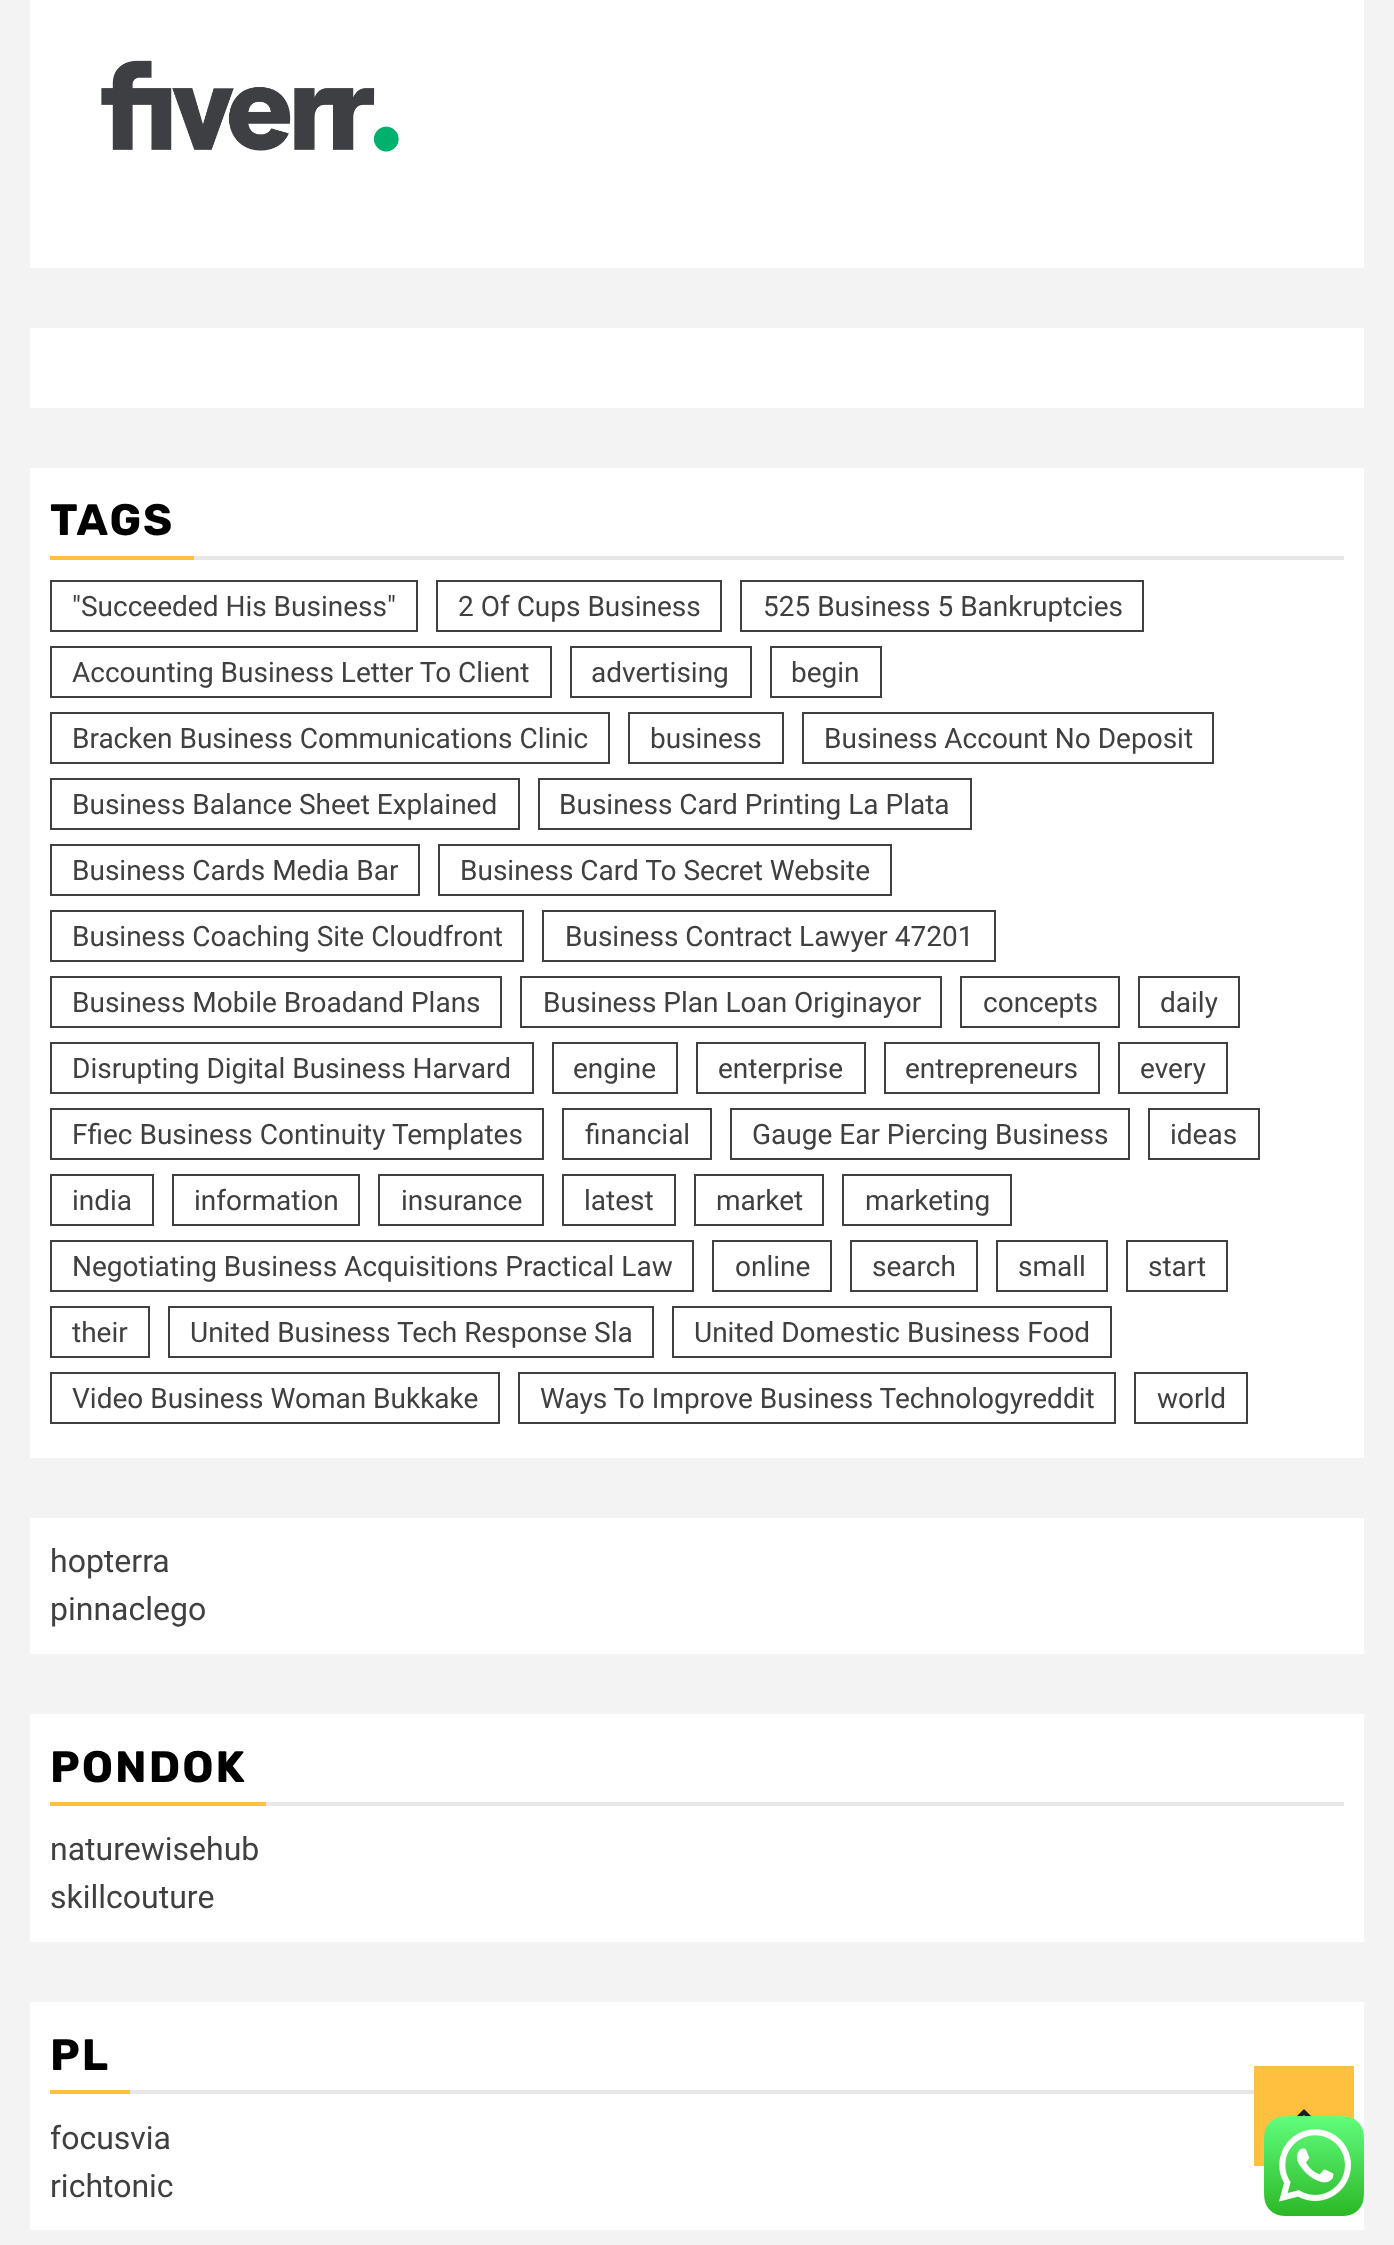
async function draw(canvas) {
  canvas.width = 1394
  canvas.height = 2245
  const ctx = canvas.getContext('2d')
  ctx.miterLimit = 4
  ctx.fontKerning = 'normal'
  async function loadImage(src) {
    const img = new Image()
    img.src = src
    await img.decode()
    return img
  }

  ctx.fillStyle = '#f3f3f3'
  ctx.fillRect(0, 0, 1394, 2245)
  ctx.fillStyle = '#fff'
  ctx.fillRect(30, 0, 1334, 268)
  ctx.drawImage(await loadImage('image0.png'), 101, 60, 298, 92)
  ctx.fillRect(30, 328, 1334, 80)
  ctx.fillRect(30, 468, 1334, 990)
  ctx.fillStyle = '#ffbf3f'
  ctx.fillRect(50, 556, 144, 4)
  ctx.letterSpacing = '2px'
  ctx.font = 'bold 44px Rubik'
  ctx.fillStyle = '#000'
  ctx.fillText('TAGS', 50, 535)
  ctx.fillStyle = '#e7e7e7'
  ctx.fillRect(194, 556, 1150, 4)
  ctx.strokeStyle = '#404040'
  ctx.lineWidth = 2
  ctx.strokeRect(51, 581, 366, 50)
  ctx.letterSpacing = '0px'
  ctx.font = '28px Roboto'
  ctx.fillStyle = '#404040'
  ctx.fillText('"Succeeded His Business"', 72, 616)
  ctx.strokeRect(437, 581, 284, 50)
  ctx.fillText('2 Of Cups Business', 458, 616)
  ctx.strokeRect(741, 581, 402, 50)
  ctx.fillText('525 Business 5 Bankruptcies', 763, 616)
  ctx.strokeRect(51, 647, 500, 50)
  ctx.fillText('Accounting Business Letter To Client', 72, 682)
  ctx.strokeRect(571, 647, 180, 50)
  ctx.fillText('advertising', 591, 682)
  ctx.strokeRect(771, 647, 110, 50)
  ctx.fillText('begin', 791, 682)
  ctx.strokeRect(51, 713, 558, 50)
  ctx.fillText('Bracken Business Communications Clinic', 72, 748)
  ctx.strokeRect(629, 713, 154, 50)
  ctx.fillText('business', 650, 748)
  ctx.strokeRect(803, 713, 410, 50)
  ctx.fillText('Business Account No Deposit', 824, 748)
  ctx.strokeRect(51, 779, 468, 50)
  ctx.fillText('Business Balance Sheet Explained', 72, 814)
  ctx.strokeRect(539, 779, 432, 50)
  ctx.fillText('Business Card Printing La Plata', 559, 814)
  ctx.strokeRect(51, 845, 368, 50)
  ctx.fillText('Business Cards Media Bar', 72, 880)
  ctx.strokeRect(439, 845, 452, 50)
  ctx.fillText('Business Card To Secret Website', 460, 880)
  ctx.strokeRect(51, 911, 472, 50)
  ctx.fillText('Business Coaching Site Cloudfront', 72, 946)
  ctx.strokeRect(543, 911, 452, 50)
  ctx.fillText('Business Contract Lawyer 47201', 565, 946)
  ctx.strokeRect(51, 977, 450, 50)
  ctx.fillText('Business Mobile Broadand Plans', 72, 1012)
  ctx.strokeRect(521, 977, 420, 50)
  ctx.fillText('Business Plan Loan Originayor', 543, 1012)
  ctx.strokeRect(961, 977, 158, 50)
  ctx.fillText('concepts', 983, 1012)
  ctx.strokeRect(1139, 977, 100, 50)
  ctx.fillText('daily', 1160, 1012)
  ctx.strokeRect(51, 1043, 482, 50)
  ctx.fillText('Disrupting Digital Business Harvard', 72, 1078)
  ctx.strokeRect(553, 1043, 124, 50)
  ctx.fillText('engine', 573, 1078)
  ctx.strokeRect(697, 1043, 168, 50)
  ctx.fillText('enterprise', 718, 1078)
  ctx.strokeRect(885, 1043, 214, 50)
  ctx.fillText('entrepreneurs', 905, 1078)
  ctx.strokeRect(1119, 1043, 108, 50)
  ctx.fillText('every', 1140, 1078)
  ctx.strokeRect(51, 1109, 492, 50)
  ctx.fillText('Ffiec Business Continuity Templates', 72, 1144)
  ctx.strokeRect(563, 1109, 148, 50)
  ctx.fillText('financial', 585, 1144)
  ctx.strokeRect(731, 1109, 398, 50)
  ctx.fillText('Gauge Ear Piercing Business', 752, 1144)
  ctx.strokeRect(1149, 1109, 110, 50)
  ctx.fillText('ideas', 1170, 1144)
  ctx.strokeRect(51, 1175, 102, 50)
  ctx.fillText('india', 72, 1210)
  ctx.strokeRect(173, 1175, 186, 50)
  ctx.fillText('information', 194, 1210)
  ctx.strokeRect(379, 1175, 164, 50)
  ctx.fillText('insurance', 401, 1210)
  ctx.strokeRect(563, 1175, 112, 50)
  ctx.fillText('latest', 584, 1210)
  ctx.strokeRect(695, 1175, 128, 50)
  ctx.fillText('market', 716, 1210)
  ctx.strokeRect(843, 1175, 168, 50)
  ctx.fillText('marketing', 865, 1210)
  ctx.strokeRect(51, 1241, 642, 50)
  ctx.fillText('Negotiating Business Acquisitions Practical Law', 72, 1276)
  ctx.strokeRect(713, 1241, 118, 50)
  ctx.fillText('online', 735, 1276)
  ctx.strokeRect(851, 1241, 126, 50)
  ctx.fillText('search', 872, 1276)
  ctx.strokeRect(997, 1241, 110, 50)
  ctx.fillText('small', 1018, 1276)
  ctx.strokeRect(1127, 1241, 100, 50)
  ctx.fillText('start', 1148, 1276)
  ctx.strokeRect(51, 1307, 98, 50)
  ctx.fillText('their', 72, 1342)
  ctx.strokeRect(169, 1307, 484, 50)
  ctx.fillText('United Business Tech Response Sla', 190, 1342)
  ctx.strokeRect(673, 1307, 438, 50)
  ctx.fillText('United Domestic Business Food', 694, 1342)
  ctx.strokeRect(51, 1373, 448, 50)
  ctx.fillText('Video Business Woman Bukkake', 72, 1408)
  ctx.strokeRect(519, 1373, 596, 50)
  ctx.fillText('Ways To Improve Business Technologyreddit', 540, 1408)
  ctx.strokeRect(1135, 1373, 112, 50)
  ctx.fillText('world', 1157, 1408)
  ctx.fillStyle = '#fff'
  ctx.fillRect(30, 1518, 1334, 136)
  ctx.font = '32px Roboto'
  ctx.fillStyle = '#404040'
  ctx.fillText('hopterra', 50, 1572)
  ctx.fillText('pinnaclego', 50, 1620)
  ctx.fillStyle = '#fff'
  ctx.fillRect(30, 1714, 1334, 228)
  ctx.fillStyle = '#ffbf3f'
  ctx.fillRect(50, 1802, 216, 4)
  ctx.letterSpacing = '2px'
  ctx.font = 'bold 44px Rubik'
  ctx.fillStyle = '#000'
  ctx.fillText('PONDOK', 50, 1782)
  ctx.fillStyle = '#e7e7e7'
  ctx.fillRect(266, 1802, 1078, 4)
  ctx.letterSpacing = '0px'
  ctx.font = '32px Roboto'
  ctx.fillStyle = '#404040'
  ctx.fillText('naturewisehub', 50, 1860)
  ctx.fillText('skillcouture', 50, 1908)
  ctx.fillStyle = '#fff'
  ctx.fillRect(30, 2002, 1334, 228)
  ctx.fillStyle = '#ffbf3f'
  ctx.fillRect(50, 2090, 80, 4)
  ctx.letterSpacing = '2px'
  ctx.font = 'bold 44px Rubik'
  ctx.fillStyle = '#000'
  ctx.fillText('PL', 50, 2070)
  ctx.fillStyle = '#e7e7e7'
  ctx.fillRect(130, 2090, 1124, 4)
  ctx.letterSpacing = '0px'
  ctx.font = '32px Roboto'
  ctx.fillStyle = '#404040'
  ctx.fillText('focusvia', 50, 2149)
  ctx.fillText('richtonic', 50, 2197)
  ctx.fillStyle = '#ffbf3f'
  ctx.fillRect(1254, 2066, 100, 100)
  ctx.drawImage(await loadImage('image1.png'), 1296, 2109, 16, 8)
  ctx.drawImage(await loadImage('image2.png'), 1264, 2116, 100, 100)
}

draw(document.querySelector('canvas'))
